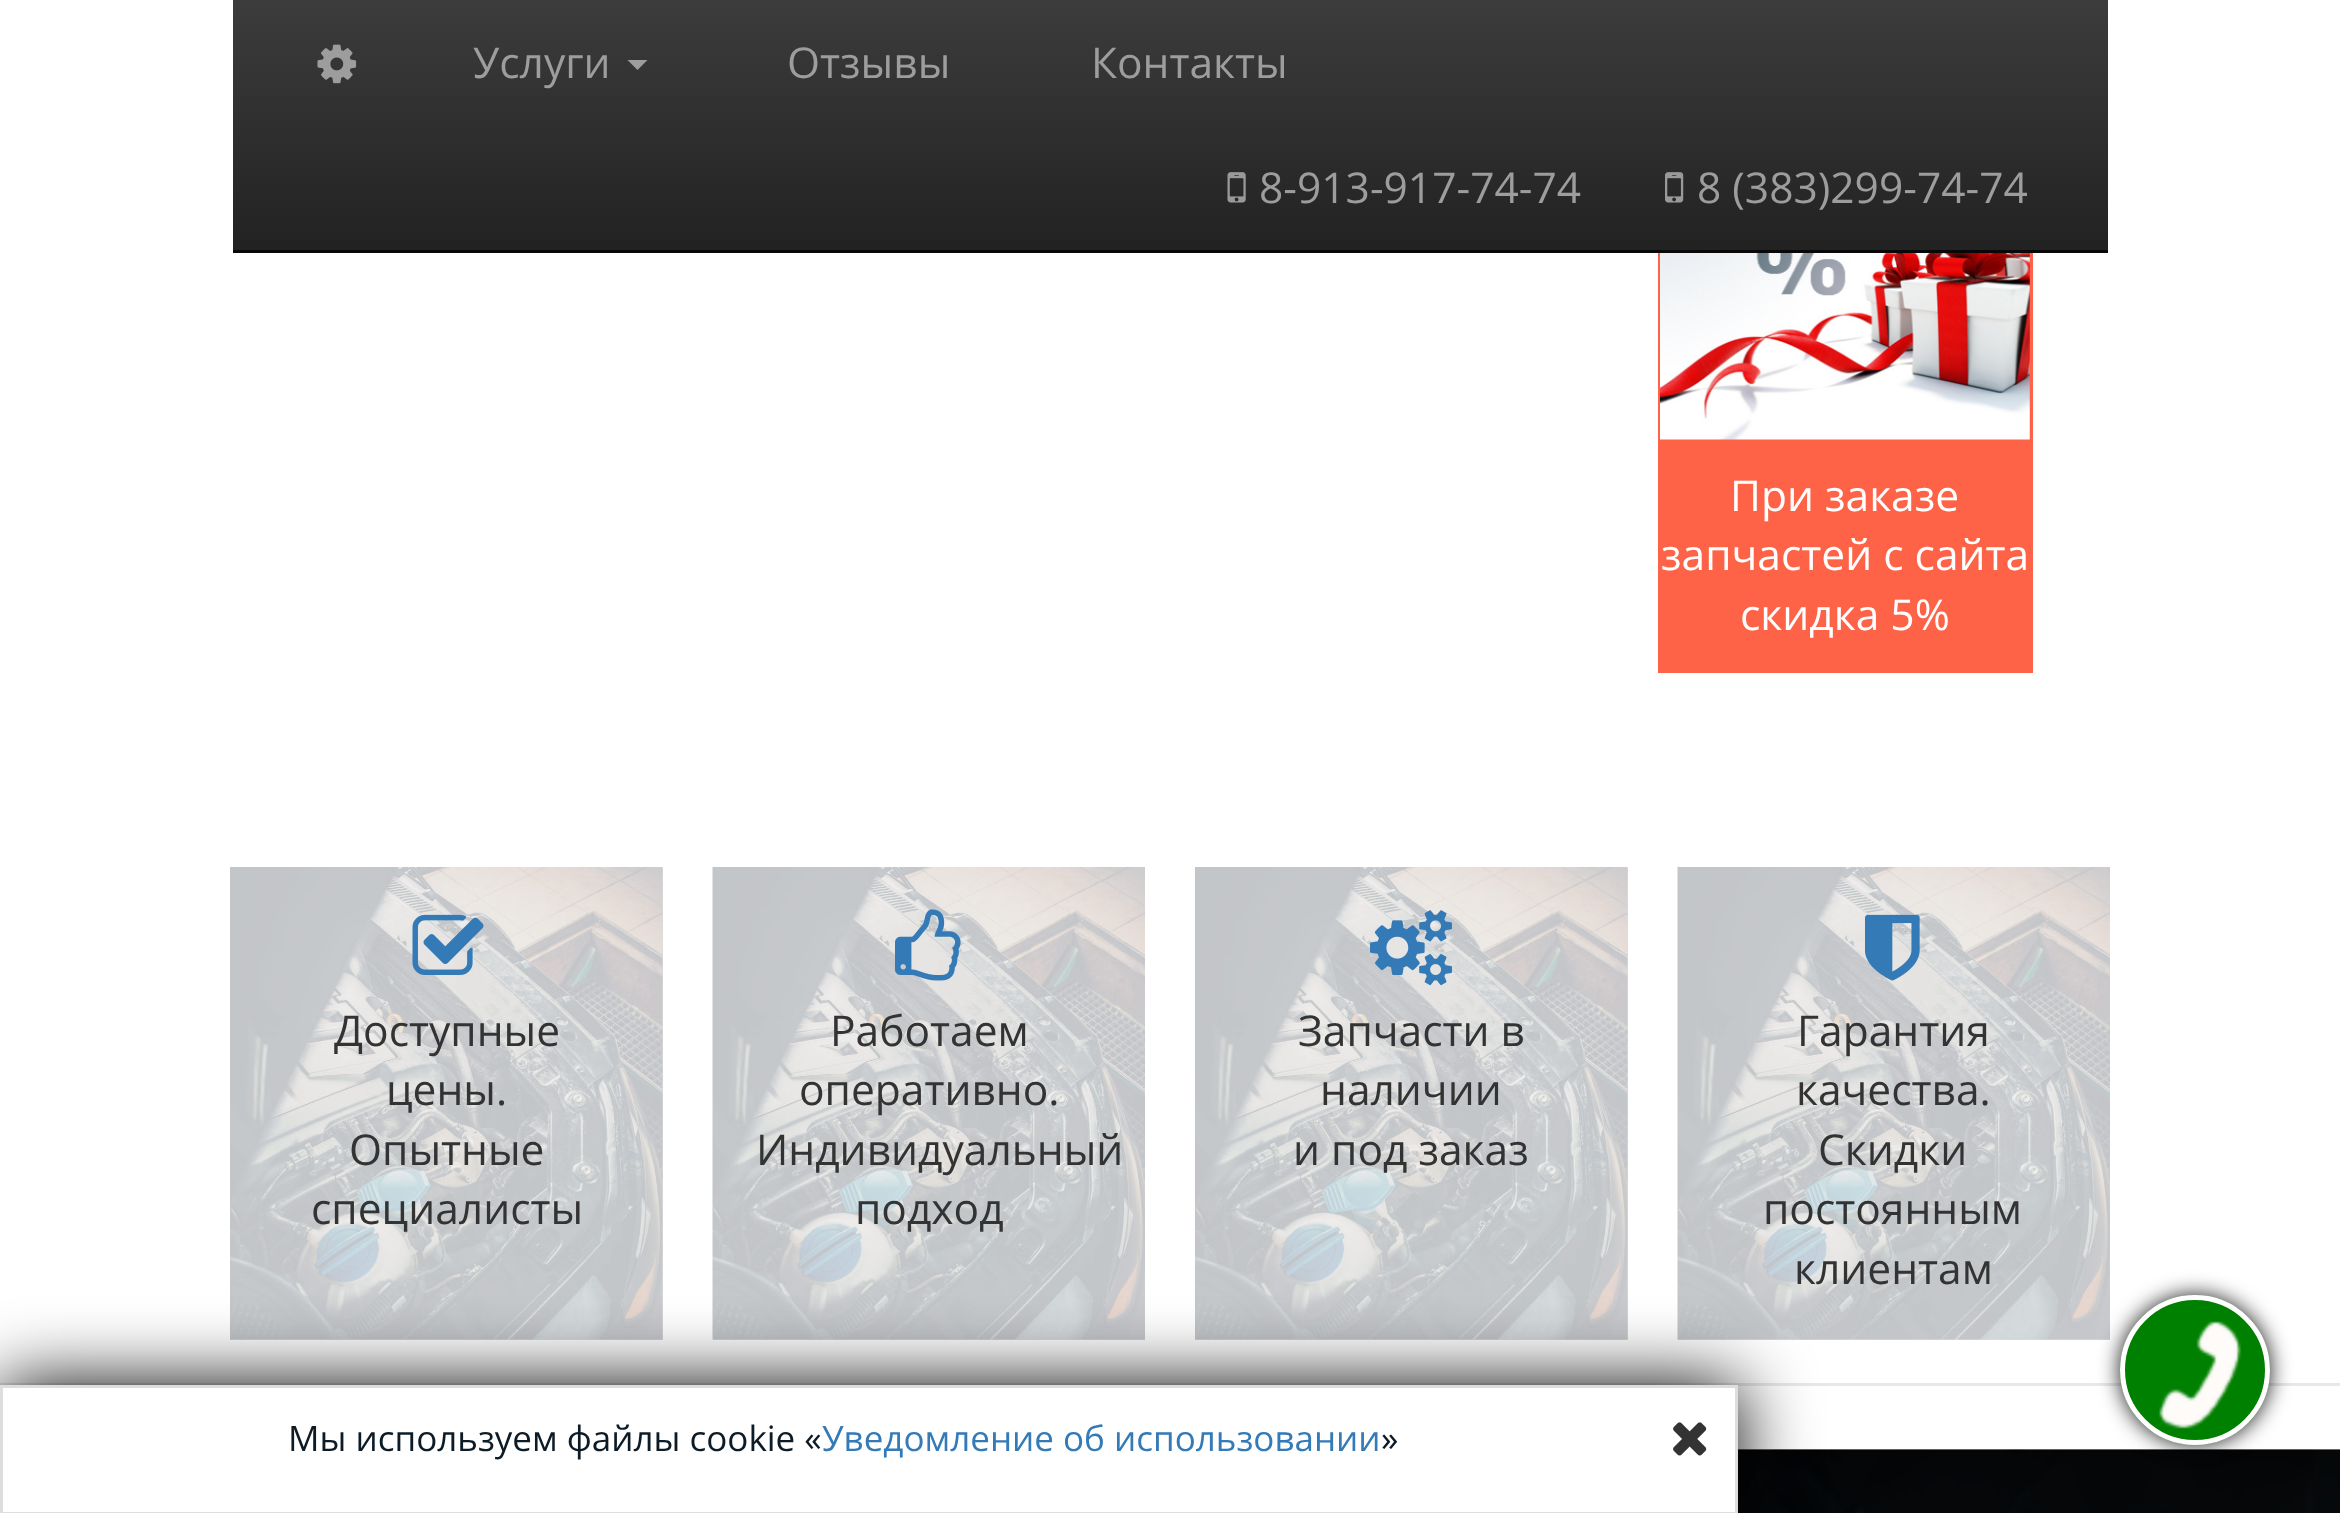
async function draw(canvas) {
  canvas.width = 2340
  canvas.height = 1513
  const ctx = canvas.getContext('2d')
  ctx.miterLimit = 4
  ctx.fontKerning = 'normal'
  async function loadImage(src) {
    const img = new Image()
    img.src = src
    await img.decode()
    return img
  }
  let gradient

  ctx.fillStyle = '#fff'
  ctx.fillRect(0, 0, 2340, 1513)
  gradient = ctx.createLinearGradient(1170, 0, 1170, 250)
  gradient.addColorStop(0, '#3c3c3c')
  gradient.addColorStop(1, '#222')
  ctx.fillStyle = gradient
  ctx.fillRect(233, 0, 1875, 250)
  ctx.fillStyle = '#080808'
  ctx.fillRect(233, 250, 1875, 3)
  ctx.drawImage(await loadImage('image0.png'), 317, 44, 40, 40)
  ctx.font = '42.5px Open Sans'
  ctx.fillStyle = '#9d9d9d'
  ctx.fillText('Услуги', 473, 78)
  ctx.beginPath()
  ctx.moveTo(627.5, 60)
  ctx.lineTo(647.5, 60)
  ctx.lineTo(637.5, 70)
  ctx.closePath()
  ctx.fill()
  ctx.fillText('Отзывы', 787, 78)
  ctx.fillText('Контакты', 1091, 78)
  ctx.drawImage(await loadImage('image1.png'), 1227, 172, 19, 31)
  ctx.fillText('8-913-917-74-74', 1259, 203)
  ctx.drawImage(await loadImage('image2.png'), 1665, 172, 19, 31)
  ctx.fillText('8 (383)299-74-74', 1697, 203)
  ctx.fillStyle = '#ff6347'
  ctx.fillRect(1658, 253, 375, 420)
  ctx.drawImage(await loadImage('image3.png'), 1660, 253, 370, 187)
  ctx.fillStyle = '#fff'
  ctx.fillText('При заказе', 1730, 511)
  ctx.fillText('запчастей с сайта', 1661, 570)
  ctx.fillText('скидка 5%', 1740, 630)
  ctx.fillStyle = '#ddd'
  ctx.fillRect(230, 868, 433, 472)
  ctx.drawImage(await loadImage('image4.png'), 230, 867, 433, 473)
  ctx.drawImage(await loadImage('image5.png'), 412, 914, 72, 61)
  ctx.fillStyle = '#333'
  ctx.fillText('Доступные', 334, 1046)
  ctx.fillText('цены.', 386, 1105)
  ctx.fillText('Опытные', 349, 1165)
  ctx.fillText('специалисты', 311, 1224)
  ctx.fillStyle = '#ddd'
  ctx.fillRect(713, 1339, 432, 1)
  ctx.drawImage(await loadImage('image6.png'), 712, 867, 433, 473)
  ctx.drawImage(await loadImage('image7.png'), 895, 909, 66, 72)
  ctx.fillStyle = '#333'
  ctx.fillText('Работаем', 830, 1046)
  ctx.fillText('оперативно.', 799, 1105)
  ctx.fillText('Индивидуальный', 756, 1165)
  ctx.fillText('подход', 855, 1224)
  ctx.fillStyle = '#ddd'
  ctx.fillRect(1195, 868, 433, 472)
  ctx.drawImage(await loadImage('image4.png'), 1195, 867, 433, 473)
  ctx.drawImage(await loadImage('image8.png'), 1370, 910, 82, 76)
  ctx.fillStyle = '#333'
  ctx.fillText('Запчасти в', 1298, 1046)
  ctx.fillText('наличии', 1320, 1105)
  ctx.fillText('и под заказ', 1293, 1165)
  ctx.fillStyle = '#ddd'
  ctx.fillRect(1678, 1339, 432, 1)
  ctx.drawImage(await loadImage('image6.png'), 1677, 867, 433, 473)
  ctx.drawImage(await loadImage('image9.png'), 1865, 914, 55, 67)
  ctx.fillStyle = '#333'
  ctx.fillText('Гарантия', 1797, 1046)
  ctx.fillText('качества.', 1796, 1105)
  ctx.fillText('Скидки', 1818, 1165)
  ctx.fillText('постоянным', 1763, 1224)
  ctx.fillText('клиентам', 1794, 1284)
  ctx.fillStyle = '#e7e8e9'
  ctx.fillRect(0, 1383, 2340, 3)
  ctx.drawImage(await loadImage('image12.png'), 1738, 1449, 602, 64)
  ctx.fillStyle = '#000'
  ctx.filter = 'blur(37.5px)'
  ctx.beginPath()
  ctx.rect(0, 1385, 1738, 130)
  ctx.fill()
  ctx.filter = 'none'
  ctx.fillStyle = '#fff'
  ctx.beginPath()
  ctx.rect(1.5, 1386.5, 1735, 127)
  ctx.fill()
  ctx.strokeStyle = '#ddd'
  ctx.lineWidth = 3
  ctx.stroke()
  ctx.font = '35px Open Sans'
  ctx.fillStyle = '#0c1b26'
  ctx.fillText('Мы используем файлы cookie «', 288, 1451)
  ctx.fillStyle = '#337ab7'
  ctx.fillText('Уведомление об использовании', 822, 1451)
  ctx.fillStyle = '#0c1b26'
  ctx.fillText('»', 1381, 1451)
  ctx.drawImage(await loadImage('image10.png'), 1673, 1422, 34, 34)
  ctx.fillStyle = '#000000e6'
  ctx.filter = 'blur(10.5px)'
  ctx.beginPath()
  ctx.roundRect(2120, 1295, 150, 150, 75)
  ctx.fill()
  ctx.filter = 'none'
  ctx.fillStyle = '#008000'
  ctx.beginPath()
  ctx.arc(2195, 1370, 75, 0, 2 * Math.PI)
  ctx.fill()
  ctx.drawImage(await loadImage('image11.png'), 2159, 1321, 83, 108)
  ctx.beginPath()
  ctx.arc(2195, 1370, 72.5, 0, 2 * Math.PI)
  ctx.strokeStyle = '#fff'
  ctx.lineWidth = 5
  ctx.stroke()
}

draw(document.querySelector('canvas'))
